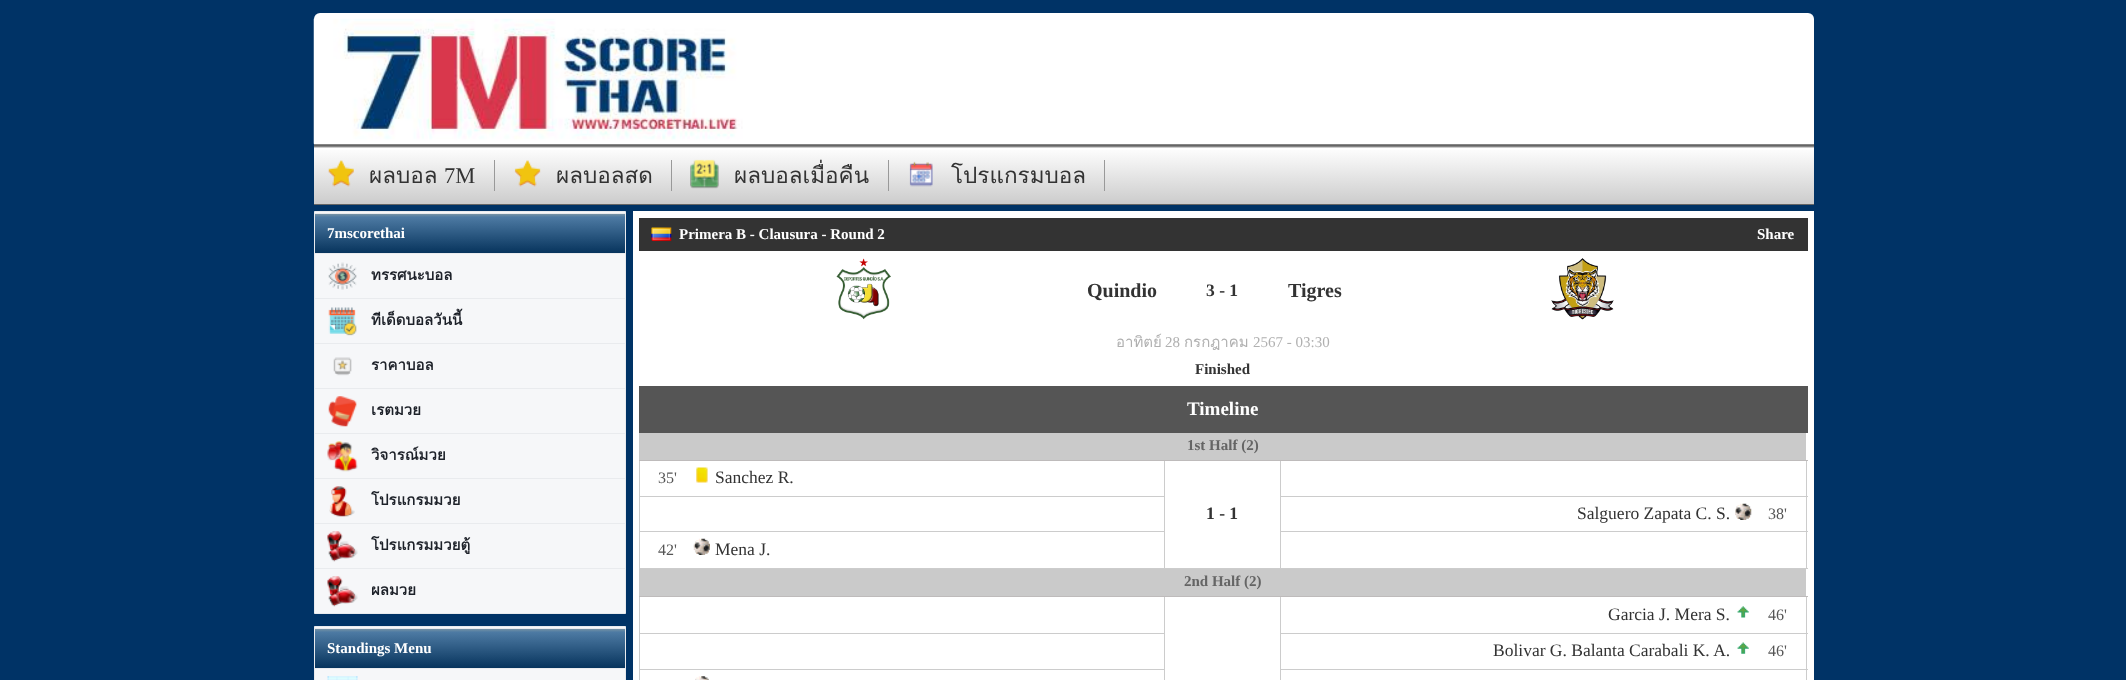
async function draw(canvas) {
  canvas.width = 2126
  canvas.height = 680
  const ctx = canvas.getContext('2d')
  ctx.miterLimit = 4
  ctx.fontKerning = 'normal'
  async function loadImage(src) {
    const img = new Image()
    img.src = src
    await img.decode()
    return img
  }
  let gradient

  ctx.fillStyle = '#036'
  ctx.fillRect(0, 0, 2126, 680)
  ctx.fillStyle = '#fff'
  ctx.beginPath()
  ctx.roundRect(314, 13, 1500, 192, [6, 6, 0, 0])
  ctx.fill()
  ctx.drawImage(await loadImage('image0.png'), 313, 18, 430, 126)
  ctx.fillStyle = '#858585'
  ctx.fillRect(314, 144, 1500, 1)
  ctx.fillStyle = '#656565'
  ctx.fillRect(314, 145, 1500, 1)
  gradient = ctx.createLinearGradient(1064, 91, 1064, 148)
  gradient.addColorStop(0, '#fff')
  gradient.addColorStop(1, '#ccc')
  ctx.fillStyle = gradient
  ctx.fillRect(314, 147, 1500, 1)
  gradient = ctx.createLinearGradient(1064, 147, 1064, 204)
  gradient.addColorStop(0, '#fff')
  gradient.addColorStop(1, '#ccc')
  ctx.fillStyle = gradient
  ctx.fillRect(314, 150, 1500, 54)
  ctx.fillStyle = '#858585'
  ctx.fillRect(314, 146, 1500, 1)
  ctx.fillStyle = '#656565'
  ctx.fillRect(314, 204, 1500, 1)
  ctx.drawImage(await loadImage('image1.png'), 328, 160, 26, 27)
  ctx.fillStyle = '#999'
  ctx.fillRect(494, 160, 1, 31)
  ctx.font = '22.5px Loma'
  ctx.fillStyle = '#333'
  ctx.fillText('ผลบอล', 369, 183)
  ctx.font = '22.5px Liberation Serif'
  ctx.fillText('7M', 444, 183)
  ctx.drawImage(await loadImage('image2.png'), 514, 160, 27, 27)
  ctx.fillStyle = '#999'
  ctx.fillRect(671, 160, 1, 31)
  ctx.font = '22.5px Loma'
  ctx.fillStyle = '#333'
  ctx.fillText('ผลบอลสด', 556, 183)
  ctx.drawImage(await loadImage('image3.png'), 690, 159, 29, 30)
  ctx.fillStyle = '#999'
  ctx.fillRect(888, 160, 1, 31)
  ctx.fillStyle = '#333'
  ctx.fillText('ผลบอลเมื่อคืน', 734, 183)
  ctx.drawImage(await loadImage('image4.png'), 909, 161, 24, 26)
  ctx.fillStyle = '#999'
  ctx.fillRect(1104, 160, 1, 31)
  ctx.fillStyle = '#333'
  ctx.fillText('โปรแกรมบอล', 951, 183)
  ctx.fillStyle = '#f6f7f9'
  ctx.beginPath()
  ctx.rect(314.5, 211.5, 311, 402)
  ctx.fill()
  ctx.strokeStyle = '#e9ebee'
  ctx.stroke()
  gradient = ctx.createLinearGradient(470, 214, 470, 253)
  gradient.addColorStop(0, '#7592a5')
  gradient.addColorStop(0.08, '#4d7aa3')
  gradient.addColorStop(1, '#07345d')
  ctx.fillStyle = gradient
  ctx.fillRect(315, 214, 310, 39)
  ctx.fillStyle = '#e9ebee'
  ctx.fillRect(315, 213, 310, 1)
  ctx.font = 'bold 15px Liberation Serif'
  ctx.fillStyle = '#fff'
  ctx.fillText('7mscorethai', 327, 238)
  ctx.drawImage(await loadImage('image5.png'), 328, 262, 29, 28)
  ctx.fillStyle = '#e9ebee'
  ctx.fillRect(315, 253, 310, 1)
  ctx.font = 'bold 15px Loma'
  ctx.fillStyle = '#1d2129'
  ctx.fillText('ทรรศนะบอล', 371, 280)
  ctx.drawImage(await loadImage('image6.png'), 328, 307, 29, 29)
  ctx.fillStyle = '#e9ebee'
  ctx.fillRect(315, 298, 310, 1)
  ctx.fillStyle = '#1d2129'
  ctx.fillText('ทีเด็ดบอลวันนี้', 371, 325)
  ctx.drawImage(await loadImage('image7.png'), 333, 357, 19, 19)
  ctx.fillStyle = '#e9ebee'
  ctx.fillRect(315, 343, 310, 1)
  ctx.fillStyle = '#1d2129'
  ctx.fillText('ราคาบอล', 371, 370)
  ctx.drawImage(await loadImage('image8.png'), 328, 396, 29, 31)
  ctx.fillStyle = '#e9ebee'
  ctx.fillRect(315, 388, 310, 1)
  ctx.fillStyle = '#1d2129'
  ctx.fillText('เรตมวย', 371, 415)
  ctx.drawImage(await loadImage('image9.png'), 327, 441, 31, 31)
  ctx.fillStyle = '#e9ebee'
  ctx.fillRect(315, 433, 310, 1)
  ctx.fillStyle = '#1d2129'
  ctx.fillText('วิจารณ์มวย', 371, 460)
  ctx.drawImage(await loadImage('image10.png'), 329, 486, 26, 31)
  ctx.fillStyle = '#e9ebee'
  ctx.fillRect(315, 478, 310, 1)
  ctx.fillStyle = '#1d2129'
  ctx.fillText('โปรแกรมมวย', 371, 505)
  ctx.drawImage(await loadImage('image11.png'), 327, 531, 31, 31)
  ctx.fillStyle = '#e9ebee'
  ctx.fillRect(315, 523, 310, 1)
  ctx.fillStyle = '#1d2129'
  ctx.fillText('โปรแกรมมวยตู้', 371, 550)
  ctx.drawImage(await loadImage('image12.png'), 327, 576, 31, 31)
  ctx.fillStyle = '#e9ebee'
  ctx.fillRect(315, 568, 310, 1)
  ctx.fillStyle = '#1d2129'
  ctx.fillText('ผลมวย', 371, 595)
  ctx.fillStyle = '#f6f7f9'
  ctx.beginPath()
  ctx.rect(314.5, 626.5, 311, 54)
  ctx.fill()
  ctx.stroke()
  gradient = ctx.createLinearGradient(470, 629, 470, 668)
  gradient.addColorStop(0, '#7592a5')
  gradient.addColorStop(0.08, '#4d7aa3')
  gradient.addColorStop(1, '#07345d')
  ctx.fillStyle = gradient
  ctx.fillRect(315, 629, 310, 39)
  ctx.fillStyle = '#e9ebee'
  ctx.fillRect(315, 628, 310, 1)
  ctx.font = 'bold 15px Liberation Serif'
  ctx.fillStyle = '#fff'
  ctx.fillText('Standings Menu', 327, 653)
  ctx.drawImage(await loadImage('image13.png'), 327, 676, 31, 4)
  ctx.fillStyle = '#e9ebee'
  ctx.fillRect(315, 668, 310, 1)
  ctx.fillStyle = '#fff'
  ctx.fillRect(633, 211, 1181, 469)
  ctx.fillStyle = '#333'
  ctx.fillRect(639, 218, 1169, 33)
  ctx.drawImage(await loadImage('image14.png'), 651, 227, 21, 15)
  ctx.fillStyle = '#fff'
  ctx.fillText('Primera B - Clausura - Round 2', 679, 239)
  ctx.fillText('Share', 1757, 239)
  ctx.drawImage(await loadImage('image15.png'), 836, 258, 55, 62)
  ctx.font = 'bold 20px Liberation Serif'
  ctx.fillStyle = '#333'
  ctx.fillText('Quindio', 1087, 297)
  ctx.font = 'bold 17.5px Liberation Serif'
  ctx.fillText('3 - 1', 1206, 296)
  ctx.font = 'bold 20px Liberation Serif'
  ctx.fillText('Tigres', 1288, 297)
  ctx.drawImage(await loadImage('image16.png'), 1551, 258, 63, 62)
  ctx.font = '15px Loma'
  ctx.fillStyle = '#b0b0b0'
  ctx.fillText('อาทิตย์', 1116, 347)
  ctx.font = '15px Liberation Serif'
  ctx.fillText('28', 1165, 347)
  ctx.font = '15px Loma'
  ctx.fillText('กรกฎาคม', 1184, 347)
  ctx.font = '15px Liberation Serif'
  ctx.fillText('2567 - 03:30', 1253, 347)
  ctx.font = 'bold 15px Liberation Serif'
  ctx.fillStyle = '#333'
  ctx.fillText('Finished', 1195, 374)
  ctx.fillStyle = '#555'
  ctx.fillRect(639, 386, 1169, 47)
  ctx.font = 'bold 19px Liberation Serif'
  ctx.fillStyle = '#fff'
  ctx.fillText('Timeline', 1187, 415)
  ctx.fillStyle = '#cacaca'
  ctx.fillRect(639, 433, 1167, 27)
  ctx.fillStyle = '#ccc'
  ctx.fillRect(639, 496, 526, 1)
  ctx.fillRect(639, 531, 526, 1)
  ctx.fillRect(1280, 531, 528, 1)
  ctx.fillRect(1806, 531, 1, 38)
  ctx.fillRect(1280, 568, 528, 1)
  ctx.fillRect(1280, 531, 1, 38)
  ctx.fillRect(639, 568, 642, 1)
  ctx.fillRect(1164, 460, 1, 109)
  ctx.fillRect(639, 531, 1, 38)
  ctx.fillRect(639, 460, 1, 73)
  ctx.fillRect(1280, 496, 528, 1)
  ctx.fillRect(1806, 460, 1, 73)
  ctx.fillRect(1280, 460, 1, 73)
  ctx.fillStyle = '#bebbbb'
  ctx.fillRect(639, 460, 1169, 1)
  ctx.font = 'bold 15px Liberation Serif'
  ctx.fillStyle = '#656565'
  ctx.fillText('1st Half (2)', 1187, 450)
  ctx.font = '16px Liberation Serif'
  ctx.fillStyle = '#555'
  ctx.fillText('35\'', 658, 483)
  ctx.drawImage(await loadImage('image17.png'), 696, 467, 12, 16)
  ctx.font = '17.5px Liberation Serif'
  ctx.fillStyle = '#333'
  ctx.fillText('Sanchez R.', 715, 483)
  ctx.font = 'bold 17.5px Liberation Serif'
  ctx.fillText('1 - 1', 1206, 519)
  ctx.font = '17.5px Liberation Serif'
  ctx.fillText('Salguero Zapata C. S.', 1577, 519)
  ctx.drawImage(await loadImage('image18.png'), 1735, 503, 17, 17)
  ctx.font = '16px Liberation Serif'
  ctx.fillStyle = '#555'
  ctx.fillText('38\'', 1768, 519)
  ctx.fillText('42\'', 658, 555)
  ctx.drawImage(await loadImage('image19.png'), 693, 538, 17, 17)
  ctx.font = '17.5px Liberation Serif'
  ctx.fillStyle = '#333'
  ctx.fillText('Mena J.', 715, 555)
  ctx.fillStyle = '#cacaca'
  ctx.fillRect(639, 569, 1167, 27)
  ctx.fillStyle = '#ccc'
  ctx.fillRect(639, 633, 526, 1)
  ctx.fillRect(639, 669, 526, 1)
  ctx.fillRect(1164, 596, 1, 84)
  ctx.fillRect(639, 669, 1, 11)
  ctx.fillRect(639, 596, 1, 74)
  ctx.fillRect(1280, 633, 528, 1)
  ctx.fillRect(1280, 669, 528, 1)
  ctx.fillRect(1806, 669, 1, 11)
  ctx.fillRect(1806, 596, 1, 74)
  ctx.fillRect(1280, 669, 1, 11)
  ctx.fillRect(1280, 596, 1, 74)
  ctx.fillStyle = '#bebbbb'
  ctx.fillRect(639, 596, 1169, 1)
  ctx.font = 'bold 15px Liberation Serif'
  ctx.fillStyle = '#656565'
  ctx.fillText('2nd Half (2)', 1184, 586)
  ctx.font = '17.5px Liberation Serif'
  ctx.fillStyle = '#333'
  ctx.fillText('Garcia J. Mera S.', 1608, 620)
  ctx.drawImage(await loadImage('image20.png'), 1737, 606, 12, 12)
  ctx.font = '16px Liberation Serif'
  ctx.fillStyle = '#555'
  ctx.fillText('46\'', 1768, 620)
  ctx.font = '17.5px Liberation Serif'
  ctx.fillStyle = '#333'
  ctx.fillText('Bolivar G. Balanta Carabali K. A.', 1493, 656)
  ctx.drawImage(await loadImage('image21.png'), 1737, 642, 12, 12)
  ctx.font = '16px Liberation Serif'
  ctx.fillStyle = '#555'
  ctx.fillText('46\'', 1768, 656)
  ctx.drawImage(await loadImage('image22.png'), 695, 676, 14, 4)
}

draw(document.querySelector('canvas'))
